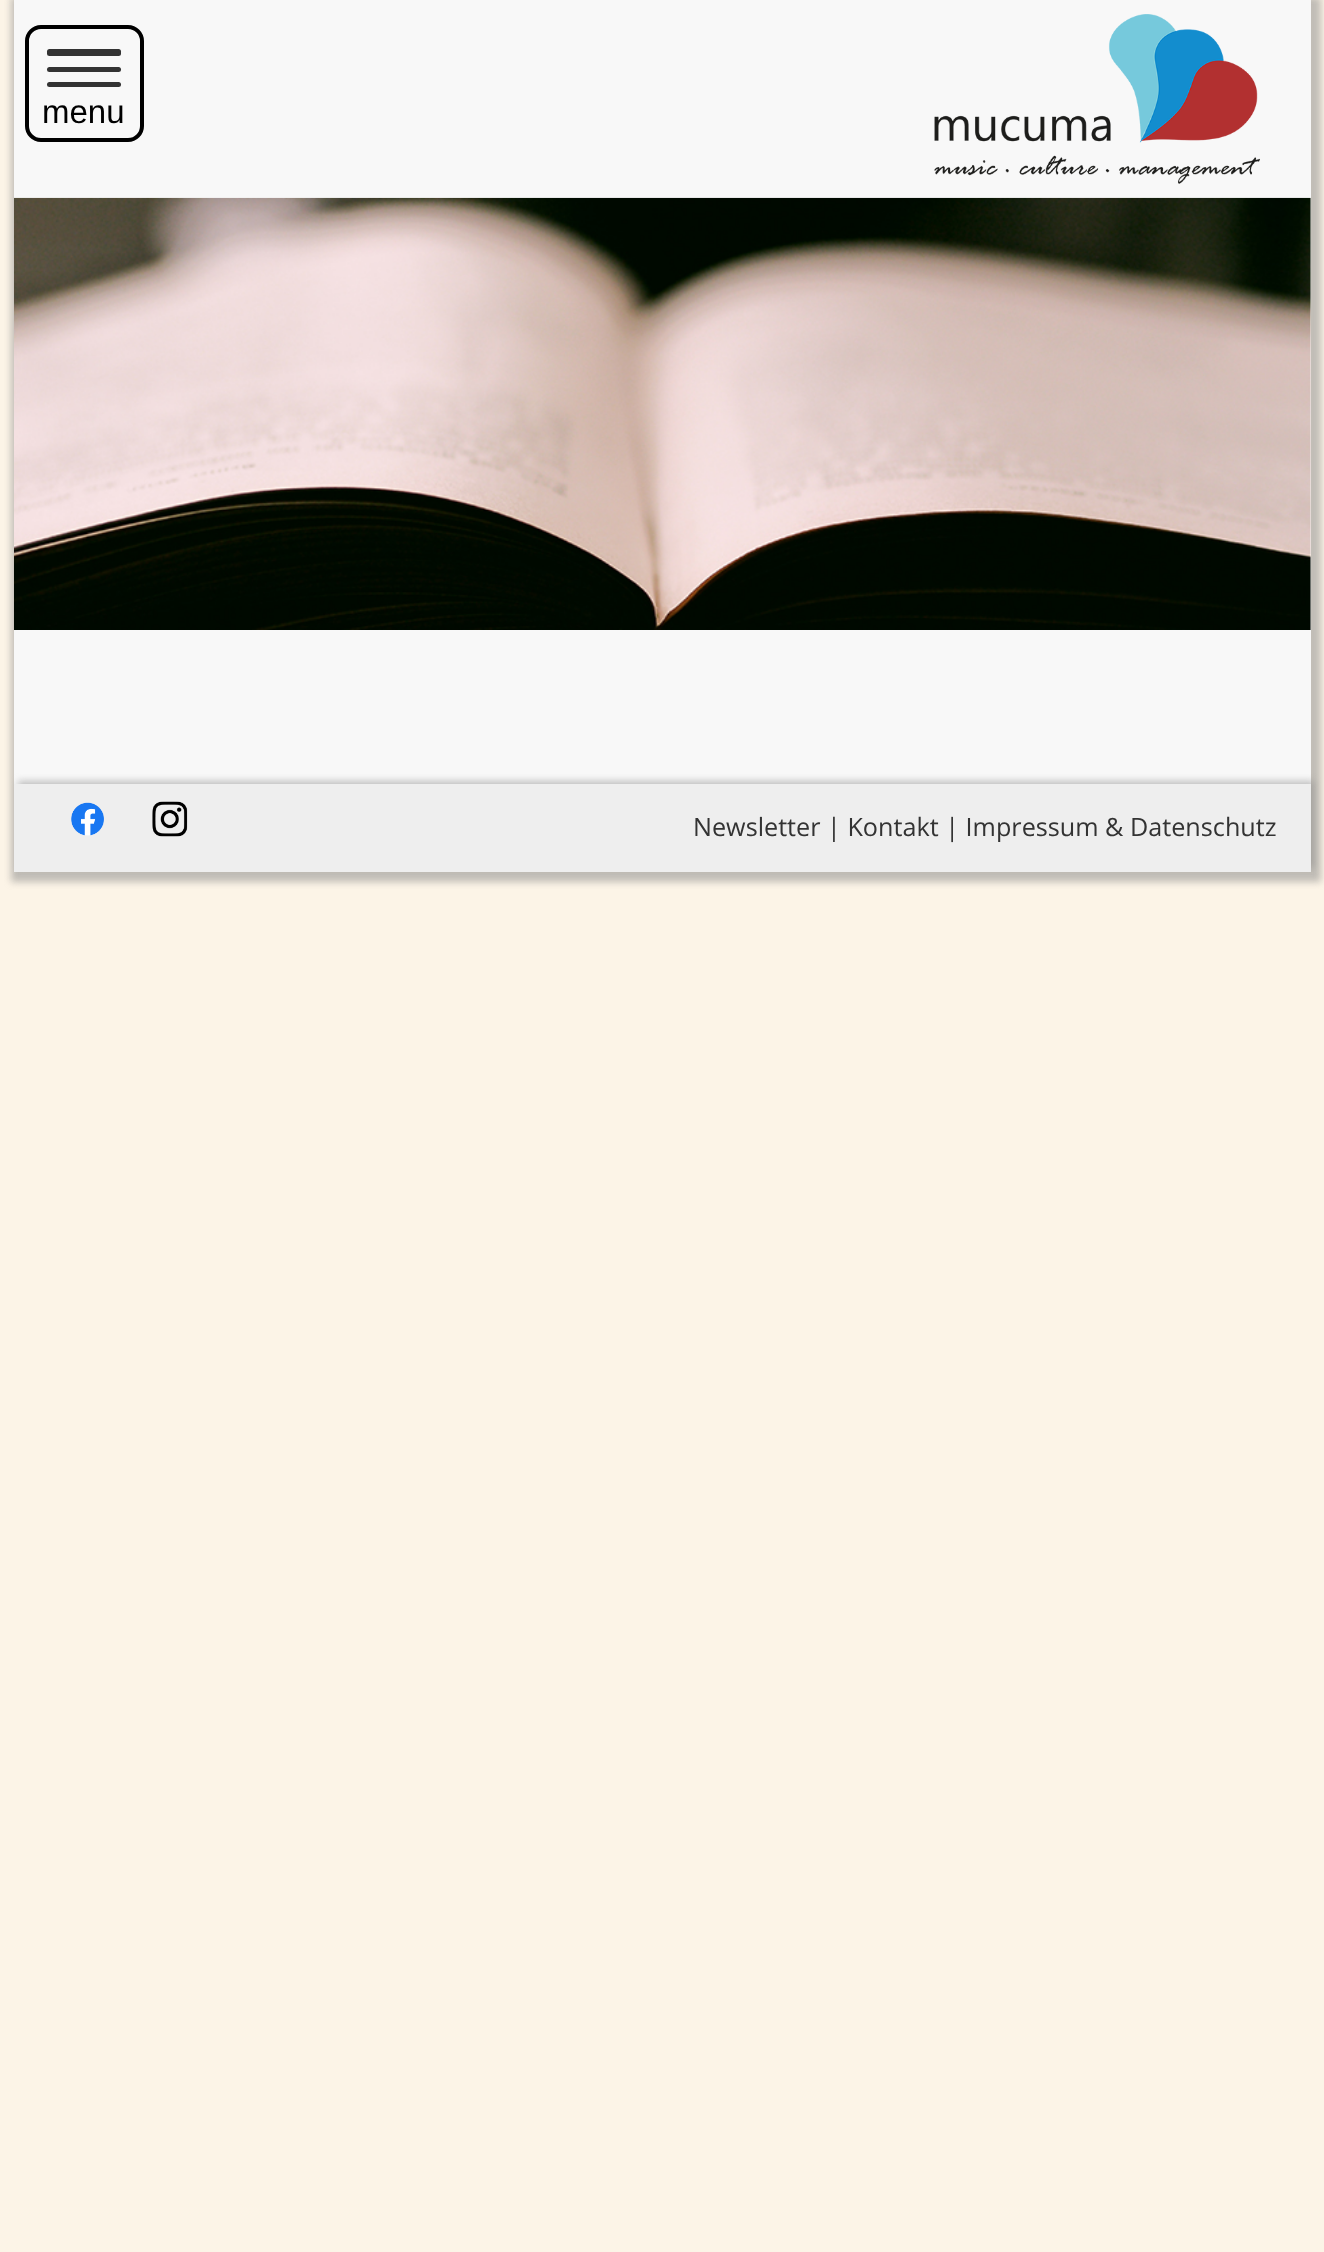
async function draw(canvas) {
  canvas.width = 1324
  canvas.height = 2252
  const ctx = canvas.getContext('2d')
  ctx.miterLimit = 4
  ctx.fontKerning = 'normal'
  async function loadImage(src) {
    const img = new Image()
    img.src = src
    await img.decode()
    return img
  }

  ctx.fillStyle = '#fcf4e7'
  ctx.fillRect(0, 0, 1324, 2252)
  ctx.fillStyle = '#88888880'
  ctx.filter = 'blur(3.5px)'
  ctx.beginPath()
  ctx.rect(11, -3, 1310, 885)
  ctx.fill()
  ctx.filter = 'none'
  ctx.fillStyle = '#f8f8f8'
  ctx.fillRect(14, 0, 1297, 784)
  ctx.beginPath()
  ctx.roundRect(27, 27, 115, 113, 14)
  ctx.strokeStyle = '#000'
  ctx.lineWidth = 4
  ctx.stroke()
  ctx.fillStyle = '#333'
  ctx.beginPath()
  ctx.roundRect(47, 49, 74, 7, 2.5)
  ctx.fill()
  ctx.beginPath()
  ctx.roundRect(47, 67, 74, 5, 2.5)
  ctx.fill()
  ctx.beginPath()
  ctx.roundRect(47, 82, 74, 5, 2.5)
  ctx.fill()
  ctx.font = '33px Liberation Sans'
  ctx.fillStyle = '#000'
  ctx.fillText('menu', 42, 123)
  ctx.drawImage(await loadImage('image0.png'), 934, 14, 326, 170)
  ctx.drawImage(await loadImage('image1.png'), 14, 197, 1297, 433)
  ctx.fillStyle = '#88888880'
  ctx.filter = 'blur(3.5px)'
  ctx.beginPath()
  ctx.rect(18, 781, 1296, 87)
  ctx.fill()
  ctx.filter = 'none'
  ctx.fillStyle = '#eee'
  ctx.fillRect(14, 784, 1297, 88)
  ctx.drawImage(await loadImage('image2.png'), 71, 802, 33, 34)
  ctx.drawImage(await loadImage('image3.png'), 152, 801, 36, 36)
  ctx.font = '25.2px Open Sans'
  ctx.fillStyle = '#333'
  ctx.fillText('Newsletter | Kontakt | Impressum & Datenschutz', 693, 836)
}

draw(document.querySelector('canvas'))
